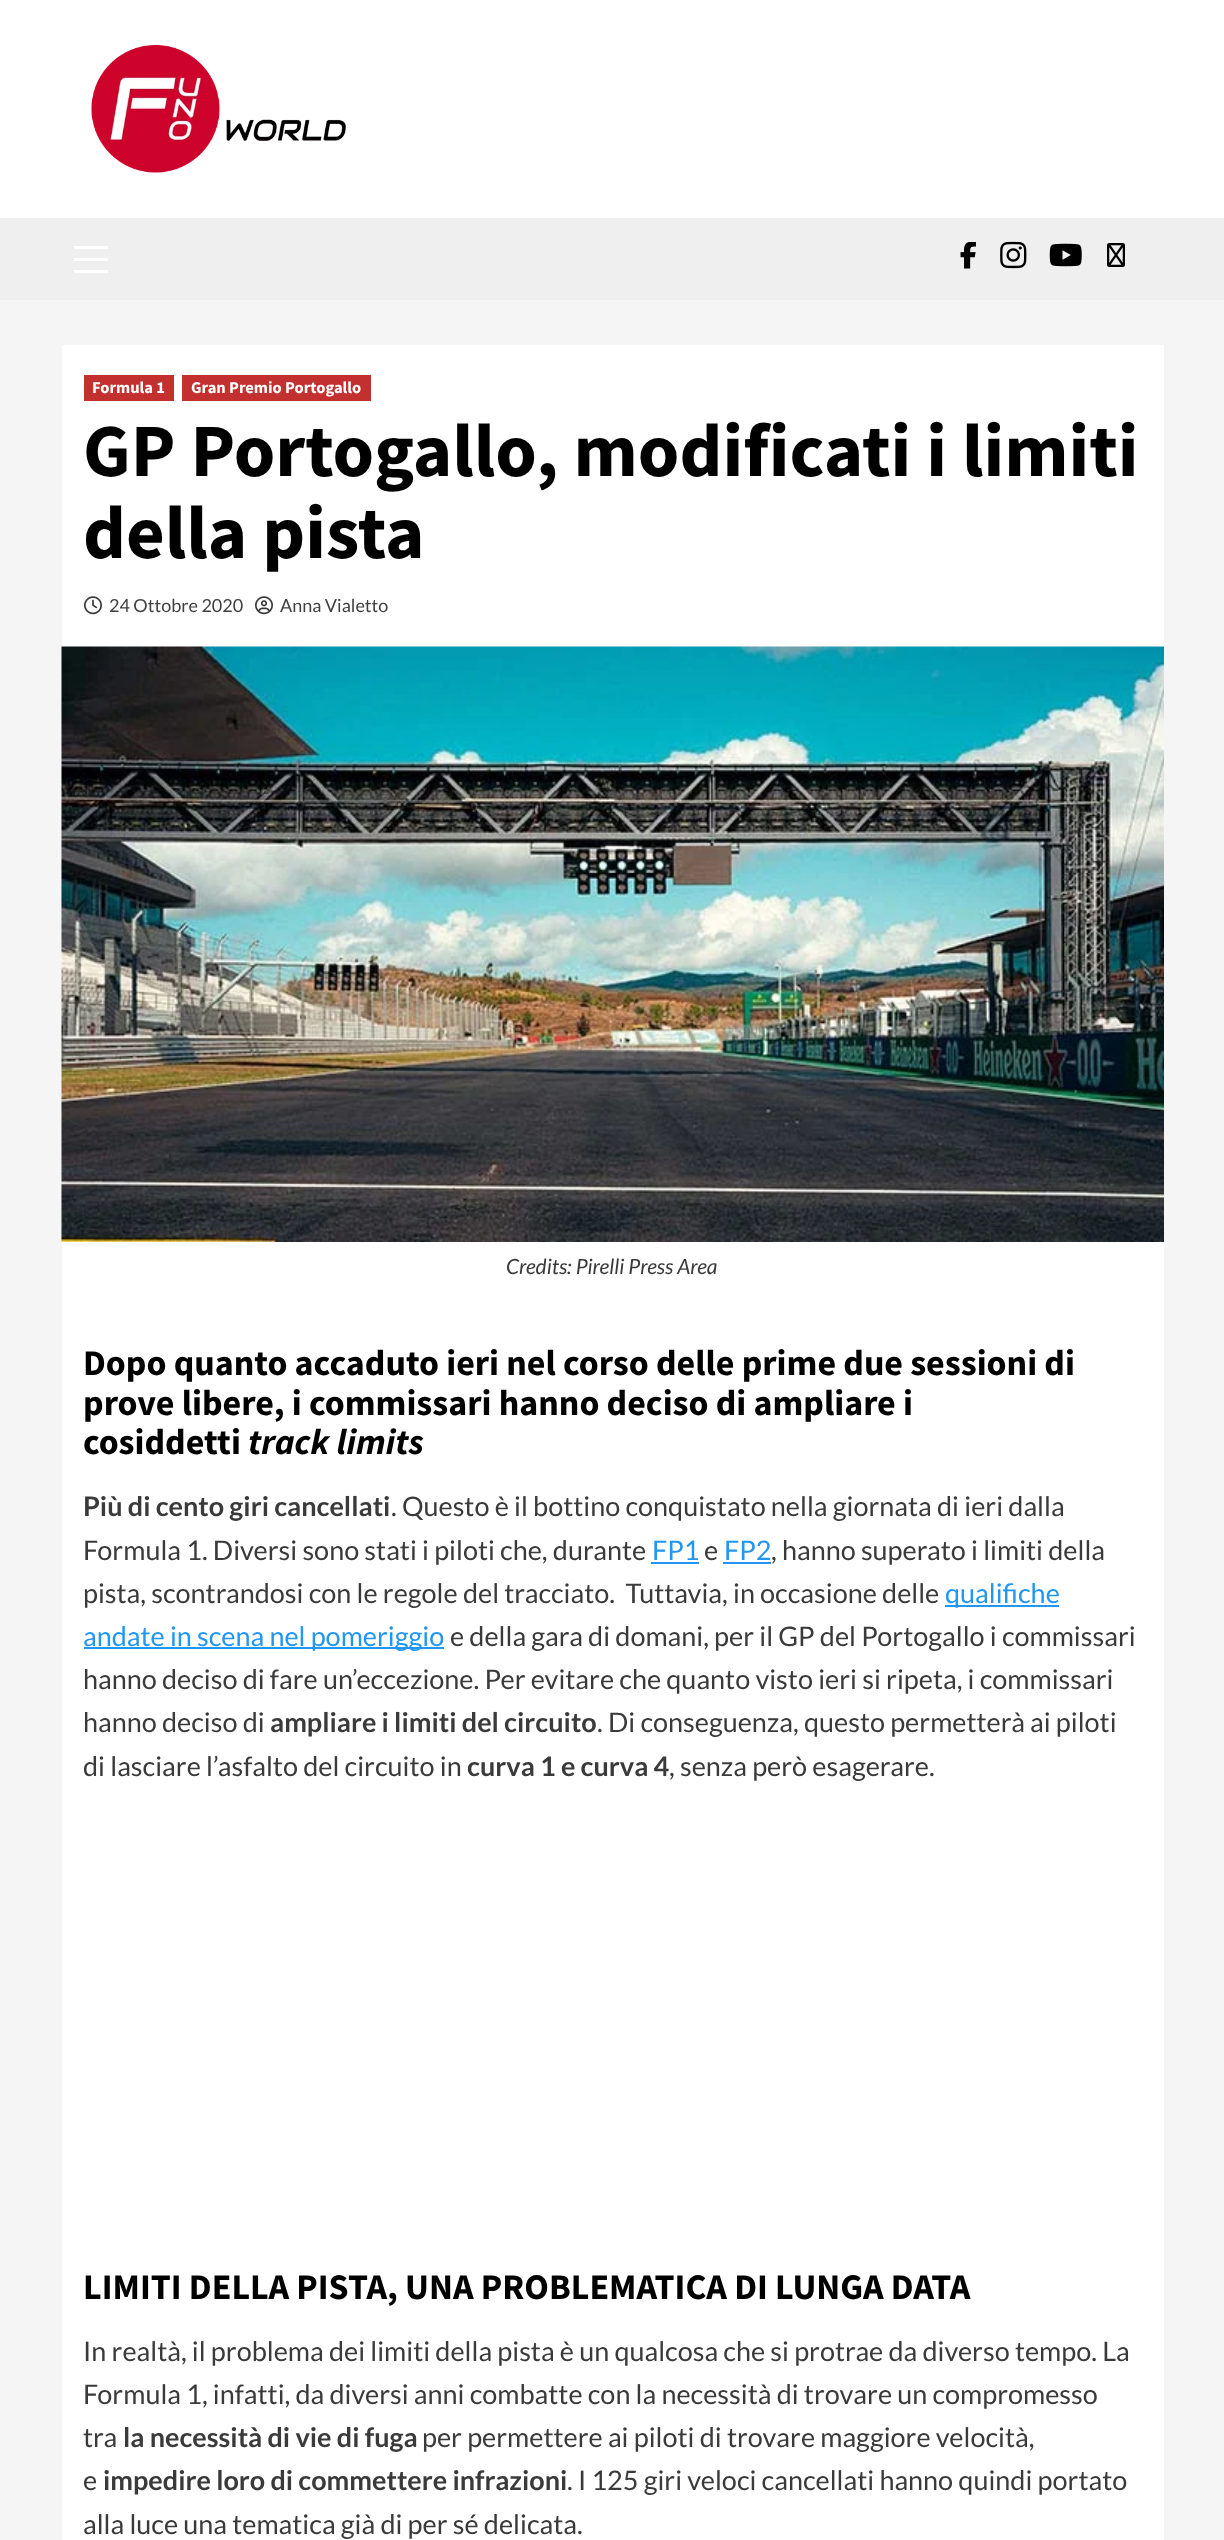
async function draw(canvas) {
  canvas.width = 1224
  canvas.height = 2540
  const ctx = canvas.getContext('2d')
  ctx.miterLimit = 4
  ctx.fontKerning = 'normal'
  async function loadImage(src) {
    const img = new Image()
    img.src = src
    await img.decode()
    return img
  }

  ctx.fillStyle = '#f5f5f5'
  ctx.fillRect(0, 0, 1224, 2540)
  ctx.fillStyle = '#fff'
  ctx.fillRect(0, 0, 1224, 218)
  ctx.drawImage(await loadImage('image0.png'), 91, 45, 255, 128)
  ctx.fillStyle = '#efefef'
  ctx.fillRect(0, 218, 1224, 82)
  ctx.fillStyle = '#fff'
  ctx.fillRect(74, 258, 34, 3)
  ctx.fillRect(74, 246, 34, 3)
  ctx.fillRect(74, 270, 34, 3)
  ctx.drawImage(await loadImage('image1.png'), 960, 242, 16, 27)
  ctx.drawImage(await loadImage('image2.png'), 1000, 241, 27, 28)
  ctx.drawImage(await loadImage('image3.png'), 1049, 243, 33, 24)
  ctx.drawImage(await loadImage('image4.png'), 1107, 243, 18, 24)
  ctx.fillRect(62, 345, 1102, 2195)
  ctx.fillStyle = '#c23030'
  ctx.fillRect(84, 375, 90, 26)
  ctx.font = 'bold 16.5px Source Sans Pro'
  ctx.fillStyle = '#fff'
  ctx.fillText('Formula 1', 92, 393)
  ctx.fillStyle = '#c23030'
  ctx.fillRect(182, 375, 189, 26)
  ctx.fillStyle = '#fff'
  ctx.fillText('Gran Premio Portogallo', 191, 393)
  ctx.font = 'bold 75px Source Sans Pro'
  ctx.fillStyle = '#000'
  ctx.fillText('GP Portogallo, modificati i limiti', 83, 476)
  ctx.fillText('della pista', 83, 558)
  ctx.drawImage(await loadImage('image5.png'), 84, 596, 18, 19)
  ctx.font = '18px Lato'
  ctx.fillStyle = '#404040'
  ctx.fillText('24 Ottobre 2020', 109, 612)
  ctx.drawImage(await loadImage('image6.png'), 255, 596, 18, 19)
  ctx.fillText('Anna Vialetto', 280, 612)
  ctx.drawImage(await loadImage('image7.png'), 61, 646, 1103, 596)
  ctx.font = 'italic 21px Lato'
  ctx.fillStyle = '#3a3a3a'
  ctx.fillText('Credits: Pirelli Press Area', 506, 1274)
  ctx.font = 'bold 36px Source Sans Pro'
  ctx.fillStyle = '#000'
  ctx.fillText('Dopo quanto accaduto ieri nel corso delle prime due sessioni di', 83, 1375)
  ctx.fillText('prove libere, i commissari hanno deciso di ampliare i', 83, 1415)
  ctx.fillText('cosiddetti', 83, 1454)
  ctx.font = 'italic bold 36px Source Sans Pro'
  ctx.fillText('track limits', 248, 1454)
  ctx.font = 'bold 27px Lato'
  ctx.fillStyle = '#3a3a3a'
  ctx.fillText('Più di cento giri cancellati', 83, 1516)
  ctx.font = '27px Lato'
  ctx.fillText('. Questo è il bottino conquistato nella giornata di ieri dalla', 391, 1516)
  ctx.fillText('Formula 1. Diversi sono stati i piloti che, durante', 83, 1560)
  ctx.fillStyle = '#2196f3'
  ctx.fillText('FP1', 652, 1560)
  ctx.fillRect(651, 1562, 48, 2)
  ctx.fillStyle = '#3a3a3a'
  ctx.fillText('e', 704, 1560)
  ctx.fillStyle = '#2196f3'
  ctx.fillText('FP2', 724, 1560)
  ctx.fillRect(723, 1562, 48, 2)
  ctx.fillStyle = '#3a3a3a'
  ctx.fillText(', hanno superato i limiti della', 771, 1560)
  ctx.fillText('pista, scontrandosi con le regole del tracciato.  Tuttavia, in occasione delle', 83, 1603)
  ctx.fillStyle = '#2196f3'
  ctx.fillRect(945, 1605, 114, 2)
  ctx.fillText('qualifiche', 945, 1603)
  ctx.fillRect(84, 1647, 360, 2)
  ctx.fillText('andate in scena nel pomeriggio', 83, 1646)
  ctx.fillStyle = '#3a3a3a'
  ctx.fillText('e della gara di domani, per il GP del Portogallo i commissari', 450, 1646)
  ctx.fillText('hanno deciso di fare un’eccezione. Per evitare che quanto visto ieri si ripeta, i commissari', 83, 1689)
  ctx.fillText('hanno deciso di', 83, 1732)
  ctx.font = 'bold 27px Lato'
  ctx.fillText('ampliare i limiti del circuito', 270, 1732)
  ctx.font = '27px Lato'
  ctx.fillText('. Di conseguenza, questo permetterà ai piloti', 597, 1732)
  ctx.fillText('di lasciare l’asfalto del circuito in', 83, 1776)
  ctx.font = 'bold 27px Lato'
  ctx.fillText('curva 1 e curva 4', 467, 1776)
  ctx.font = '27px Lato'
  ctx.fillText(', senza però esagerare.', 669, 1776)
  ctx.font = 'bold 36px Source Sans Pro'
  ctx.fillStyle = '#000'
  ctx.fillText('LIMITI DELLA PISTA, UNA PROBLEMATICA DI LUNGA DATA', 83, 2299)
  ctx.font = '27px Lato'
  ctx.fillStyle = '#3a3a3a'
  ctx.fillText('In realtà, il problema dei limiti della pista è un qualcosa che si protrae da diverso tempo. La', 83, 2361)
  ctx.fillText('Formula 1, infatti, da diversi anni combatte con la necessità di trovare un compromesso', 83, 2404)
  ctx.fillText('tra', 83, 2447)
  ctx.font = 'bold 27px Lato'
  ctx.fillText('la necessità di vie di fuga', 123, 2447)
  ctx.font = '27px Lato'
  ctx.fillText('per permettere ai piloti di trovare maggiore velocità,', 422, 2447)
  ctx.fillText('e', 83, 2490)
  ctx.font = 'bold 27px Lato'
  ctx.fillText('impedire loro di commettere infrazioni', 103, 2490)
  ctx.font = '27px Lato'
  ctx.fillText('. I 125 giri veloci cancellati hanno quindi portato', 567, 2490)
  ctx.fillText('alla luce una tematica già di per sé delicata.', 83, 2534)
}

draw(document.querySelector('canvas'))
